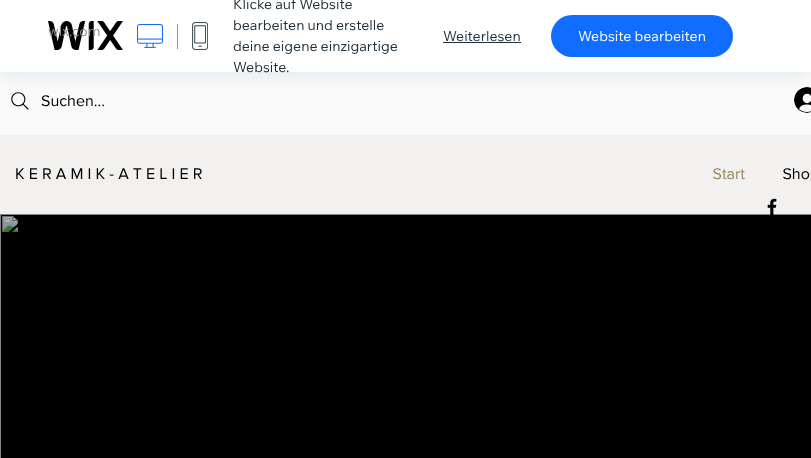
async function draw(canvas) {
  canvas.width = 811
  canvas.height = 458
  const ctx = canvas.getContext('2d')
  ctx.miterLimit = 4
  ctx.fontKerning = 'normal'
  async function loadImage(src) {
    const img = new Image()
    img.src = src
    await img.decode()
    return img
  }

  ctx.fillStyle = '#f9fafa'
  ctx.fillRect(0, 0, 811, 458)
  ctx.drawImage(await loadImage('image3.png'), 0, 87, 811, 371)
  ctx.fillStyle = '#81a2b633'
  ctx.filter = 'blur(9px)'
  ctx.beginPath()
  ctx.rect(0, 2, 811, 72)
  ctx.fill()
  ctx.filter = 'none'
  ctx.fillStyle = '#fff'
  ctx.fillRect(0, 0, 811, 72)
  ctx.drawImage(await loadImage('image0.png'), 48, 21, 75, 29)
  ctx.font = '14px Wix Madefor Text'
  ctx.fillStyle = '#8a8a8a'
  ctx.fillText('wix.com', 48, 36)
  ctx.drawImage(await loadImage('image1.png'), 137, 24, 26, 24)
  ctx.fillStyle = '#90989e'
  ctx.fillRect(177, 24, 1, 25)
  ctx.drawImage(await loadImage('image2.png'), 192, 22, 16, 28)
  ctx.fillStyle = '#20303c'
  ctx.fillText('Klicke auf Website', 233, 9)
  ctx.fillText('bearbeiten und erstelle', 233, 30)
  ctx.fillText('deine eigene einzigartige', 233, 51)
  ctx.fillText('Website.', 233, 72)
  ctx.fillText('Weiterlesen', 443, 41)
  ctx.fillRect(443, 42, 78, 1)
  ctx.fillStyle = '#116dff'
  ctx.beginPath()
  ctx.roundRect(551, 15, 182, 42, 21)
  ctx.fill()
  ctx.fillStyle = '#fff'
  ctx.fillText('Website bearbeiten', 578, 41)
}

draw(document.querySelector('canvas'))
